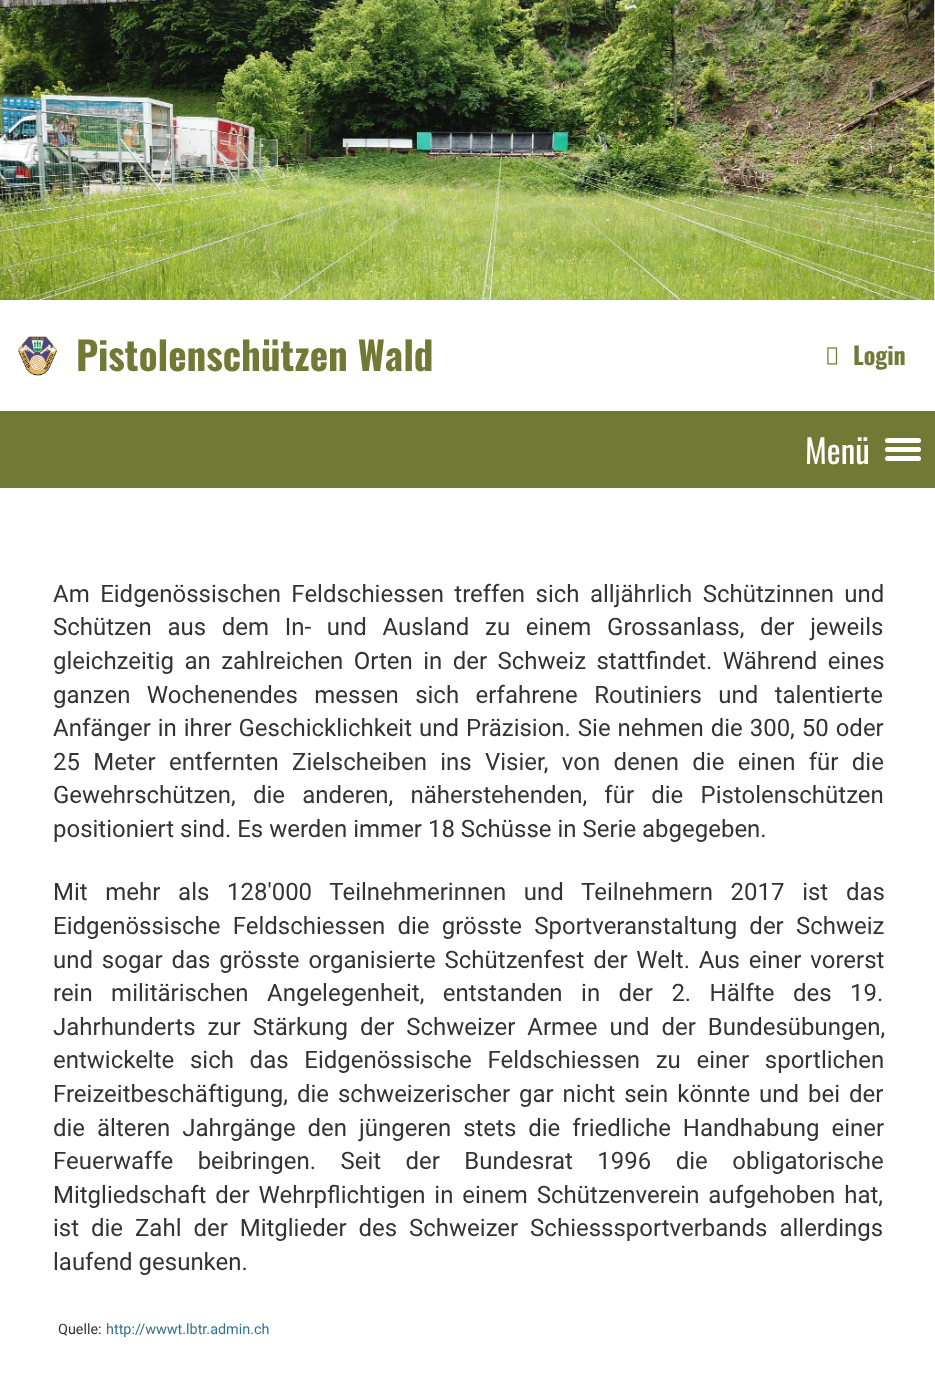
async function draw(canvas) {
  canvas.width = 935
  canvas.height = 1398
  const ctx = canvas.getContext('2d')
  ctx.miterLimit = 4
  ctx.fontKerning = 'normal'
  async function loadImage(src) {
    const img = new Image()
    img.src = src
    await img.decode()
    return img
  }

  ctx.fillStyle = '#fff'
  ctx.fillRect(0, 0, 935, 1398)
  ctx.drawImage(await loadImage('image0.png'), 0, 0, 935, 300)
  ctx.drawImage(await loadImage('image1.png'), 17, 336, 41, 40)
  ctx.font = 'bold 39px Oswald'
  ctx.fillStyle = '#707a35'
  ctx.fillText('Pistolenschützen Wald', 76, 371)
  ctx.drawImage(await loadImage('image2.png'), 827, 347, 11, 18)
  ctx.font = 'bold 24px Oswald'
  ctx.fillText('Login', 853, 365)
  ctx.fillRect(0, 411, 935, 77)
  ctx.font = '33px Oswald'
  ctx.fillStyle = '#fff'
  ctx.fillText('Menü', 805, 464)
  ctx.beginPath()
  ctx.roundRect(885, 438, 36, 5, 2.5)
  ctx.fill()
  ctx.beginPath()
  ctx.roundRect(885, 447, 36, 5, 2.5)
  ctx.fill()
  ctx.beginPath()
  ctx.roundRect(885, 456, 36, 5, 2.5)
  ctx.fill()
  ctx.wordSpacing = '4.5px'
  ctx.font = '24px Roboto'
  ctx.fillStyle = '#333'
  ctx.fillText('Am Eidgenössischen Feldschiessen treffen sich alljährlich Schützinnen und', 53, 602)
  ctx.wordSpacing = '9.75px'
  ctx.fillText('Schützen aus dem In- und Ausland zu einem Grossanlass, der jeweils', 53, 635)
  ctx.wordSpacing = '4.5px'
  ctx.fillText('gleichzeitig an zahlreichen Orten in der Schweiz stattfindet. Während eines', 53, 669)
  ctx.wordSpacing = '10.5px'
  ctx.fillText('ganzen Wochenendes messen sich erfahrene Routiniers und talentierte', 53, 703)
  ctx.wordSpacing = '1px'
  ctx.fillText('Anfänger in ihrer Geschicklichkeit und Präzision. Sie nehmen die 300, 50 oder', 53, 736)
  ctx.wordSpacing = '7.4px'
  ctx.fillText('25 Meter entfernten Zielscheiben ins Visier, von denen die einen für die', 53, 770)
  ctx.wordSpacing = '11.25px'
  ctx.fillText('Gewehrschützen, die anderen, näherstehenden, für die Pistolenschützen', 53, 803)
  ctx.wordSpacing = '0px'
  ctx.fillText('positioniert sind. Es werden immer 18 Schüsse in Serie abgegeben.', 53, 837)
  ctx.wordSpacing = '11.75px'
  ctx.fillText('Mit mehr als 128\'000 Teilnehmerinnen und Teilnehmern 2017 ist das', 53, 900)
  ctx.wordSpacing = '6.25px'
  ctx.fillText('Eidgenössische Feldschiessen die grösste Sportveranstaltung der Schweiz', 53, 934)
  ctx.wordSpacing = '2.9px'
  ctx.fillText('und sogar das grösste organisierte Schützenfest der Welt. Aus einer vorerst', 53, 968)
  ctx.wordSpacing = '12.5px'
  ctx.fillText('rein militärischen Angelegenheit, entstanden in der 2. Hälfte des 19.', 53, 1001)
  ctx.wordSpacing = '6px'
  ctx.fillText('Jahrhunderts zur Stärkung der Schweizer Armee und der Bundesübungen,', 53, 1035)
  ctx.wordSpacing = '9.75px'
  ctx.fillText('entwickelte sich das Eidgenössische Feldschiessen zu einer sportlichen', 53, 1068)
  ctx.wordSpacing = '3px'
  ctx.fillText('Freizeitbeschäftigung, die schweizerischer gar nicht sein könnte und bei der', 53, 1102)
  ctx.wordSpacing = '6px'
  ctx.fillText('die älteren Jahrgänge den jüngeren stets die friedliche Handhabung einer', 53, 1136)
  ctx.wordSpacing = '18.5px'
  ctx.fillText('Feuerwaffe beibringen. Seit der Bundesrat 1996 die obligatorische', 53, 1169)
  ctx.wordSpacing = '3px'
  ctx.fillText('Mitgliedschaft der Wehrpflichtigen in einem Schützenverein aufgehoben hat,', 53, 1203)
  ctx.wordSpacing = '6px'
  ctx.fillText('ist die Zahl der Mitglieder des Schweizer Schiesssportverbands allerdings', 53, 1236)
  ctx.wordSpacing = '0px'
  ctx.fillText('laufend gesunken.', 53, 1270)
  ctx.font = '14.4px Roboto'
  ctx.fillText('Quelle:', 58, 1334)
  ctx.fillStyle = '#33708c'
  ctx.fillText('http://wwwt.lbtr.admin.ch', 106, 1334)
}

draw(document.querySelector('canvas'))
